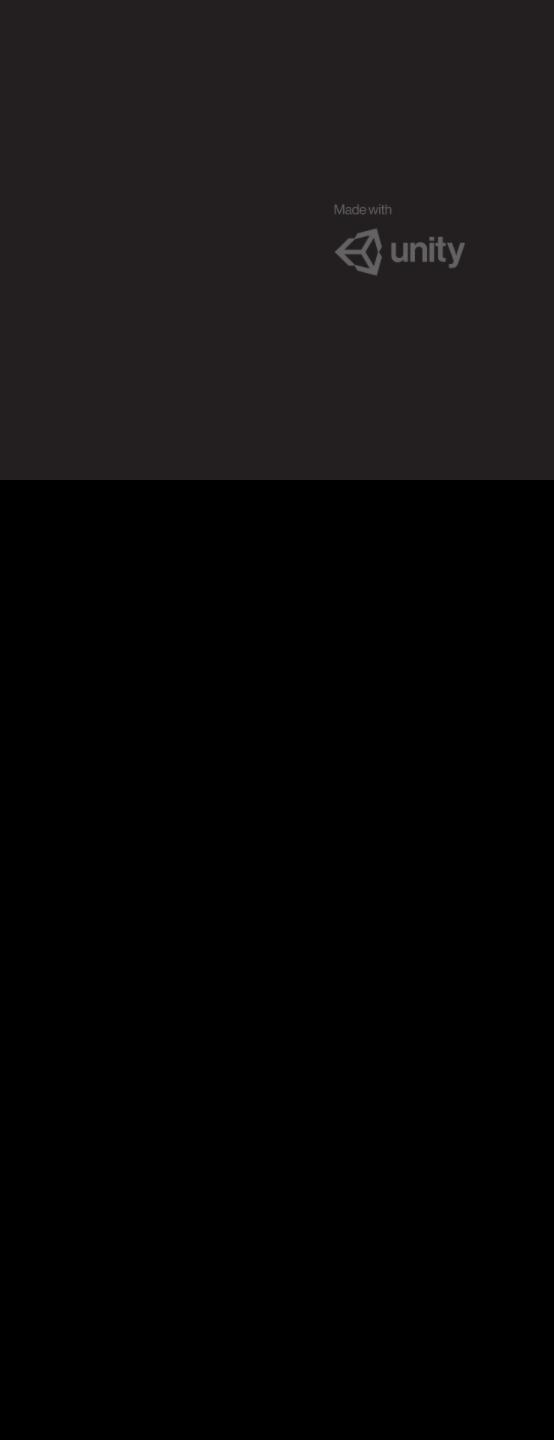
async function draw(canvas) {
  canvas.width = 554
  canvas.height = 1440
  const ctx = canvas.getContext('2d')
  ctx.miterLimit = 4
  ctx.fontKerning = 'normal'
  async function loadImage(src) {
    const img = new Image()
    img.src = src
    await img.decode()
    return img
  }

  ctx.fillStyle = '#000'
  ctx.fillRect(0, 0, 554, 1440)
  ctx.drawImage(await loadImage('image0.png'), 0, 0, 554, 480)
}

draw(document.querySelector('canvas'))
